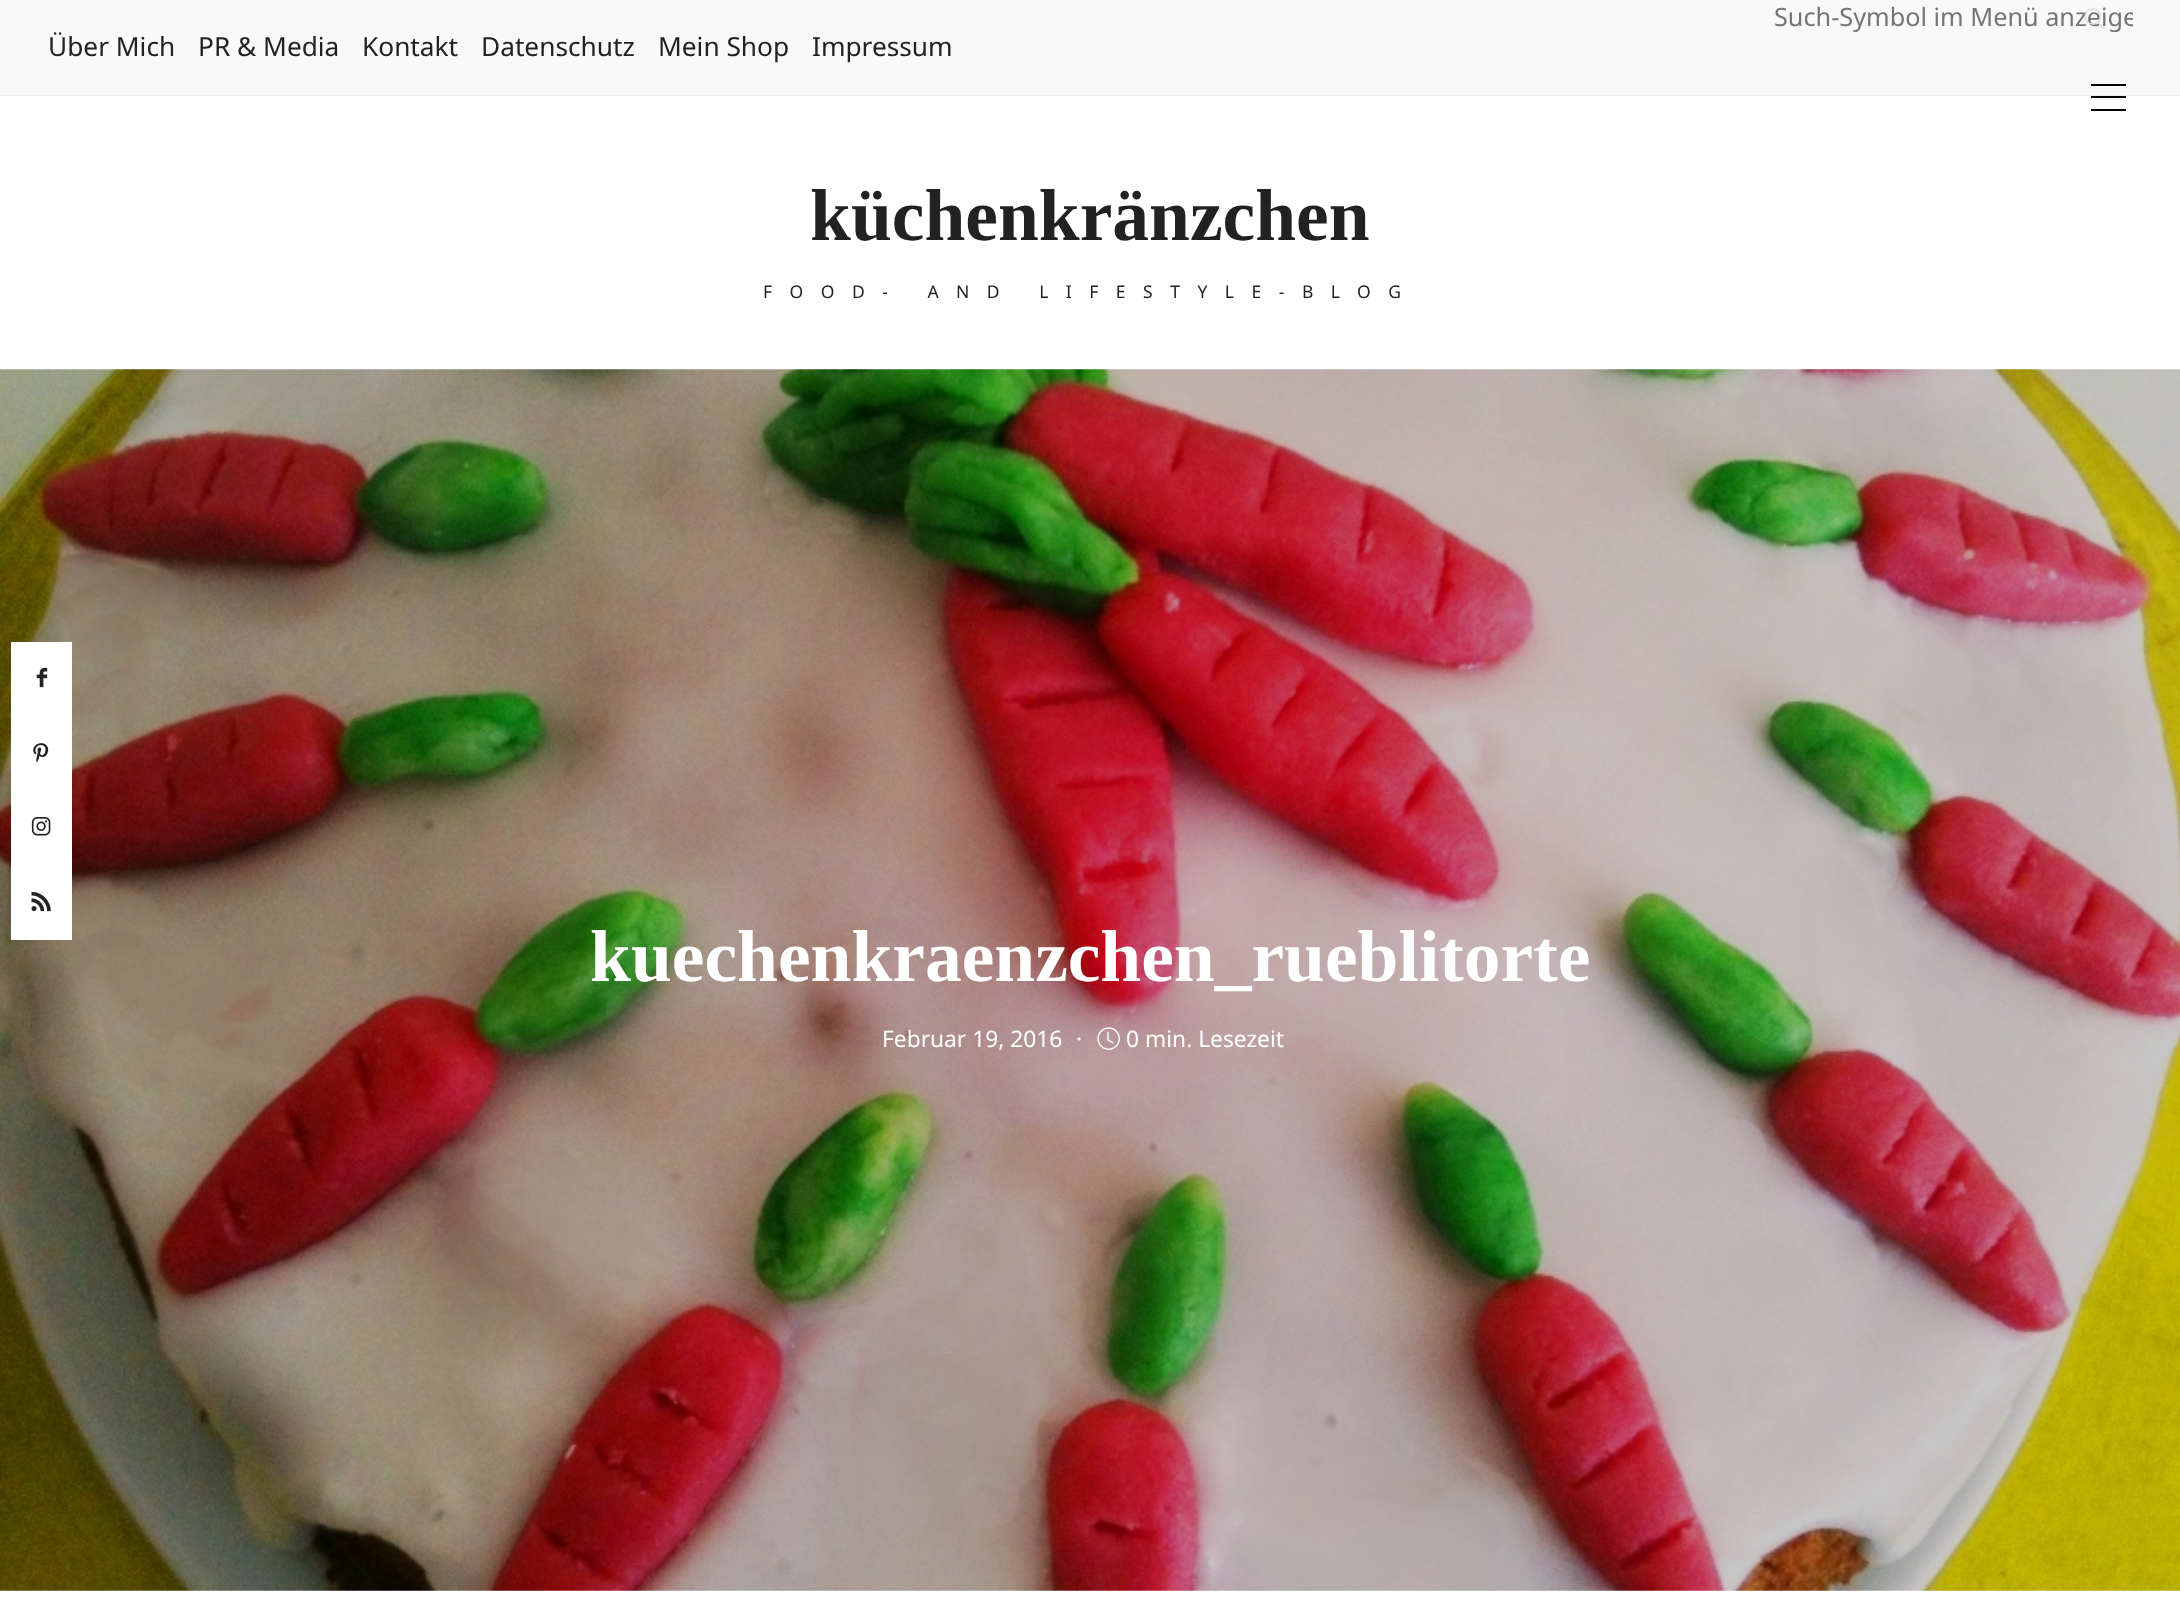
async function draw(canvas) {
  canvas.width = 2180
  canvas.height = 1606
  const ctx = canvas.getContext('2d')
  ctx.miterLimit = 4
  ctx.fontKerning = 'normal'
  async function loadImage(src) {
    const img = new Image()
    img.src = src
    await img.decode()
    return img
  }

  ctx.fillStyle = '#fff'
  ctx.fillRect(0, 0, 2180, 1606)
  ctx.drawImage(await loadImage('image5.png'), 0, 369, 2180, 1222)
  ctx.fillRect(11, 642, 61, 298)
  ctx.drawImage(await loadImage('image0.png'), 36, 667, 12, 21)
  ctx.drawImage(await loadImage('image1.png'), 33, 743, 16, 20)
  ctx.drawImage(await loadImage('image2.png'), 31, 817, 20, 19)
  ctx.drawImage(await loadImage('image3.png'), 31, 891, 20, 21)
  ctx.fillStyle = '#f9f9f9'
  ctx.fillRect(0, 0, 2180, 95)
  ctx.fillStyle = '#ededed'
  ctx.fillRect(0, 95, 2180, 1)
  ctx.save()
  ctx.beginPath()
  ctx.rect(1775, 0, 358, 33)
  ctx.clip()
  ctx.font = '25.25px Noto Sans'
  ctx.fillStyle = '#757575'
  ctx.fillText('Such-Symbol im Menü anzeige', 1774, 26)
  ctx.restore()
  ctx.drawImage(await loadImage('image4.png'), 2084, 8, 21, 22)
  ctx.font = '26.25px Noto Sans'
  ctx.fillStyle = '#222'
  ctx.fillText('Über Mich', 48, 56)
  ctx.fillText('PR & Media', 198, 56)
  ctx.fillText('Kontakt', 362, 56)
  ctx.fillText('Datenschutz', 481, 56)
  ctx.fillText('Mein Shop', 658, 56)
  ctx.fillText('Impressum', 812, 56)
  ctx.fillStyle = '#000'
  ctx.fillRect(2091, 96, 35, 2)
  ctx.fillRect(2091, 84, 35, 2)
  ctx.fillRect(2091, 109, 35, 2)
  ctx.font = 'bold 73.5px Liberation Serif'
  ctx.fillStyle = '#222'
  ctx.fillText('küchenkränzchen', 810, 240)
  ctx.letterSpacing = '17.5px'
  ctx.font = '17.5px Noto Sans'
  ctx.fillText('FOOD- AND LIFESTYLE-BLOG', 763, 298)
  ctx.letterSpacing = '0px'
  ctx.font = 'bold 73.5px Liberation Serif'
  ctx.fillStyle = '#fff'
  ctx.fillText('kuechenkraenzchen_rueblitorte', 590, 981)
  ctx.font = '22.75px Noto Sans'
  ctx.fillText('Februar 19, 2016', 882, 1047)
  ctx.fillText('·', 1076, 1047)
  ctx.drawImage(await loadImage('image6.png'), 1097, 1027, 23, 23)
  ctx.fillText('0 min. Lesezeit', 1126, 1047)
}

draw(document.querySelector('canvas'))
